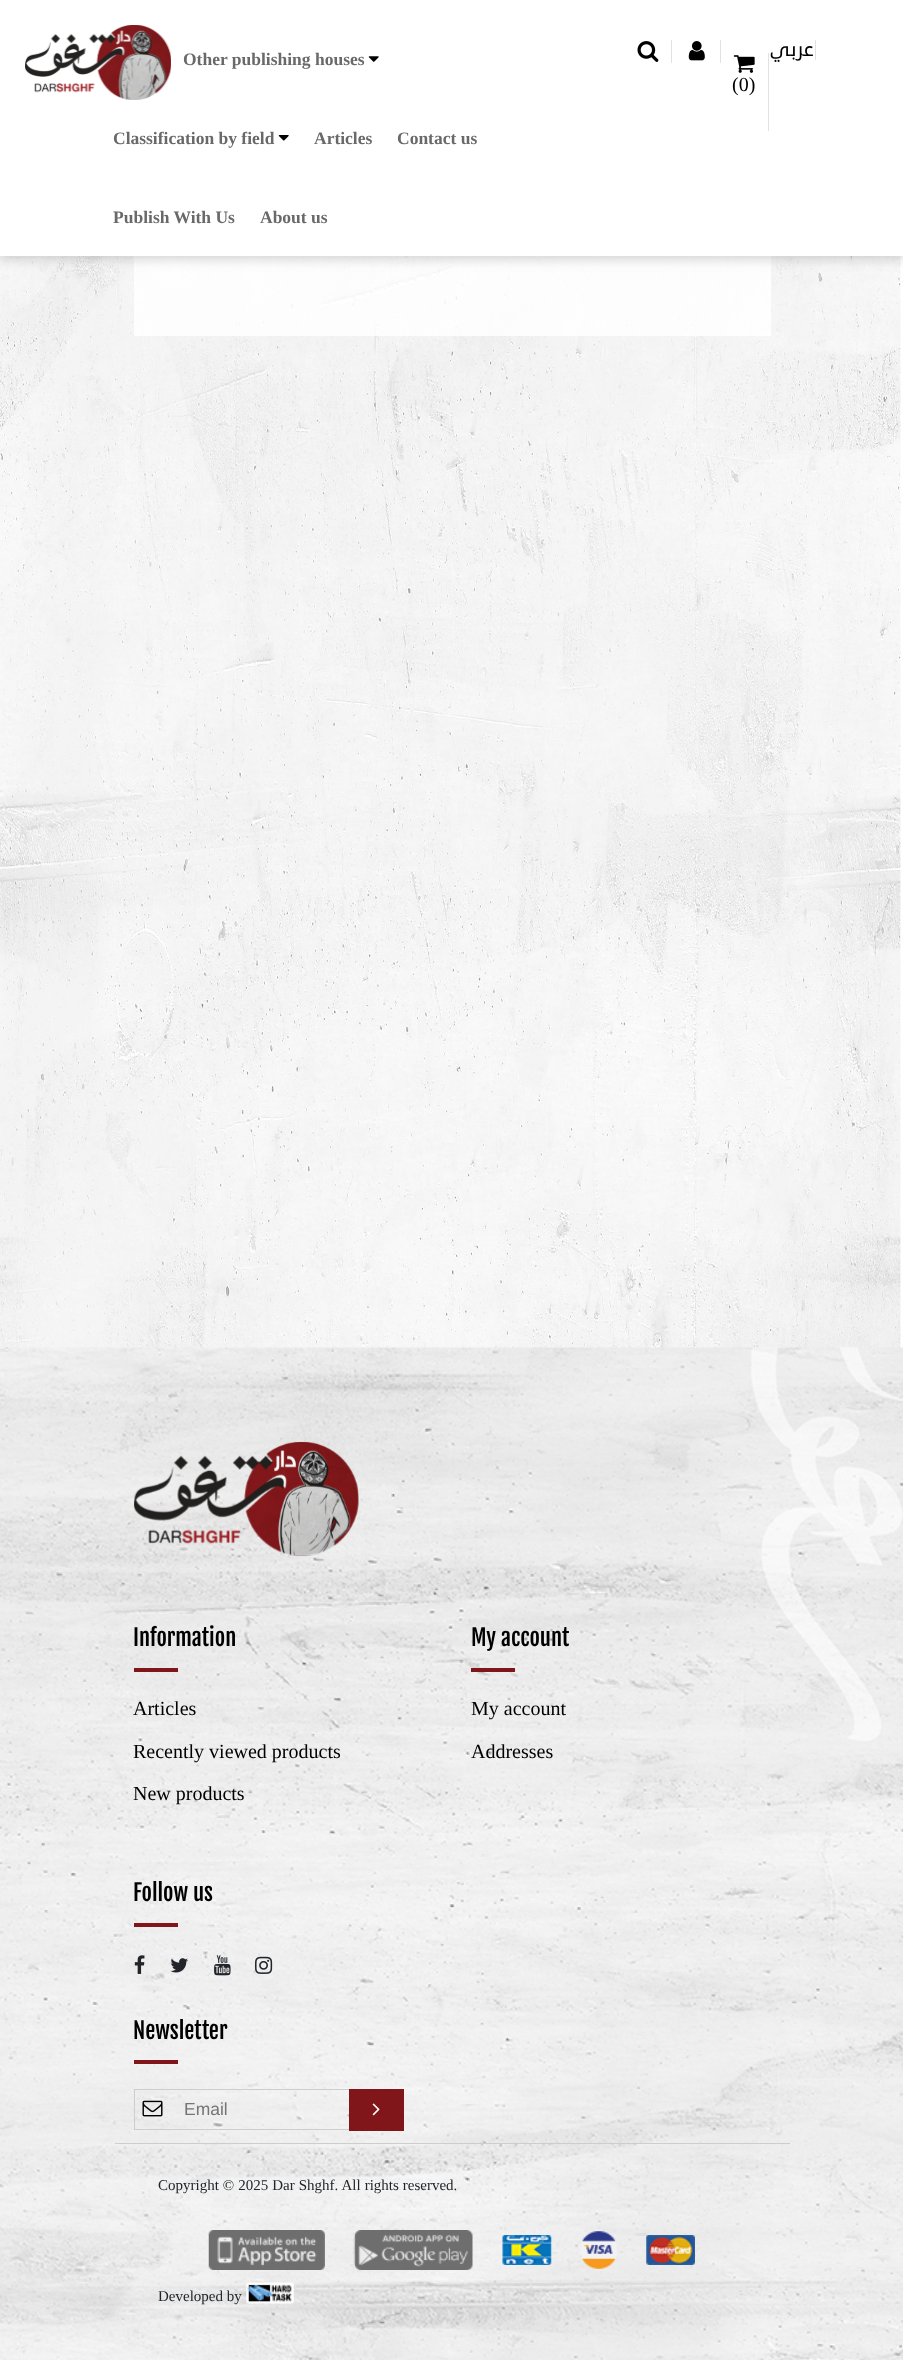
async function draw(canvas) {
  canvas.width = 903
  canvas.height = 2360
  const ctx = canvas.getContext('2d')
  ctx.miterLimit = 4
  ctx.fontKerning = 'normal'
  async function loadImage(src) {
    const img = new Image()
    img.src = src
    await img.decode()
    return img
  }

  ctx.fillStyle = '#fff'
  ctx.fillRect(0, 0, 903, 2360)
  ctx.drawImage(await loadImage('image0.png'), 0, 256, 901, 1092)
  ctx.fillStyle = '#ffffffd4'
  ctx.fillRect(134, 256, 637, 80)
  ctx.fillStyle = '#5d5d5d45'
  ctx.filter = 'blur(6px)'
  ctx.beginPath()
  ctx.rect(0, 3, 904, 256)
  ctx.fill()
  ctx.filter = 'none'
  ctx.fillStyle = '#fff'
  ctx.fillRect(0, 0, 903, 256)
  ctx.drawImage(await loadImage('image1.png'), 25, 25, 146, 75)
  ctx.font = 'bold 17.5px Liberation Serif'
  ctx.fillStyle = '#696969'
  ctx.fillText('Other publishing houses', 183, 65)
  ctx.drawImage(await loadImage('image2.png'), 368, 56, 11, 6)
  ctx.fillText('Classification by field', 113, 144)
  ctx.drawImage(await loadImage('image3.png'), 278, 135, 11, 6)
  ctx.fillText('Articles', 314, 144)
  ctx.fillText('Contact us', 397, 144)
  ctx.fillText('Publish With Us', 113, 223)
  ctx.fillText('About us', 260, 223)
  ctx.fillStyle = '#e2e2e2'
  ctx.fillRect(671, 40, 1, 23)
  ctx.drawImage(await loadImage('image4.png'), 637, 41, 22, 21)
  ctx.fillRect(720, 40, 1, 23)
  ctx.drawImage(await loadImage('image5.png'), 688, 41, 17, 20)
  ctx.fillRect(815, 40, 1, 20)
  ctx.direction = 'rtl'
  ctx.font = '20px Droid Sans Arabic'
  ctx.fillStyle = '#000'
  ctx.fillText('عربي', 814, 56)
  ctx.fillStyle = '#e2e2e2'
  ctx.fillRect(768, 53, 1, 78)
  ctx.drawImage(await loadImage('image6.png'), 733, 55, 22, 18)
  ctx.direction = 'ltr'
  ctx.font = '20px Liberation Serif'
  ctx.fillStyle = '#000'
  ctx.fillText('(0)', 732, 91)
  ctx.drawImage(await loadImage('image7.png'), 0, 1347, 903, 1013)
  ctx.fillStyle = '#cecdcd'
  ctx.fillRect(115, 2143, 675, 1)
  ctx.drawImage(await loadImage('image8.png'), 134, 1441, 225, 115)
  ctx.font = '22.5px Fjalla One'
  ctx.fillStyle = '#000'
  ctx.fillText('Information', 133, 1646)
  ctx.fillStyle = '#80161a'
  ctx.fillRect(134, 1668, 44, 4)
  ctx.font = '20px Liberation Serif'
  ctx.fillStyle = '#000'
  ctx.fillText('Articles', 133, 1715)
  ctx.fillText('Recently viewed products', 133, 1758)
  ctx.fillText('New products', 133, 1800)
  ctx.font = '22.5px Fjalla One'
  ctx.fillText('My account', 471, 1646)
  ctx.fillStyle = '#80161a'
  ctx.fillRect(471, 1668, 44, 4)
  ctx.font = '20px Liberation Serif'
  ctx.fillStyle = '#000'
  ctx.fillText('My account', 471, 1715)
  ctx.fillText('Addresses', 471, 1758)
  ctx.font = '22.5px Fjalla One'
  ctx.fillText('Follow us', 133, 1901)
  ctx.fillStyle = '#80161a'
  ctx.fillRect(134, 1923, 44, 4)
  ctx.drawImage(await loadImage('image9.png'), 134, 1955, 11, 19)
  ctx.drawImage(await loadImage('image10.png'), 170, 1958, 18, 15)
  ctx.drawImage(await loadImage('image11.png'), 214, 1955, 17, 21)
  ctx.drawImage(await loadImage('image12.png'), 255, 1956, 18, 18)
  ctx.fillStyle = '#000'
  ctx.fillText('Newsletter', 133, 2039)
  ctx.fillStyle = '#80161a'
  ctx.fillRect(134, 2060, 44, 4)
  ctx.strokeStyle = '#cecdcd'
  ctx.strokeRect(134.5, 2089.5, 269, 40)
  ctx.drawImage(await loadImage('image13.png'), 142, 2100, 21, 17)
  ctx.font = '17.5px Liberation Sans'
  ctx.fillStyle = '#757575'
  ctx.fillText('Email', 184, 2115)
  ctx.fillStyle = '#80161a'
  ctx.fillRect(349, 2089, 55, 42)
  ctx.drawImage(await loadImage('image14.png'), 372, 2103, 8, 13)
  ctx.wordSpacing = '0.25px'
  ctx.font = '15px Liberation Serif'
  ctx.fillStyle = '#212529'
  ctx.fillText('Copyright © 2025 Dar Shghf. All rights reserved.', 158, 2190)
  ctx.drawImage(await loadImage('image15.png'), 208, 2230, 117, 40)
  ctx.drawImage(await loadImage('image16.png'), 353, 2230, 120, 40)
  ctx.drawImage(await loadImage('image17.png'), 502, 2235, 50, 30)
  ctx.drawImage(await loadImage('image18.png'), 580, 2231, 37, 38)
  ctx.drawImage(await loadImage('image19.png'), 646, 2235, 49, 30)
  ctx.wordSpacing = '0px'
  ctx.fillText('Developed by', 158, 2301)
  ctx.drawImage(await loadImage('image20.png'), 246, 2282, 48, 22)
}

draw(document.querySelector('canvas'))
